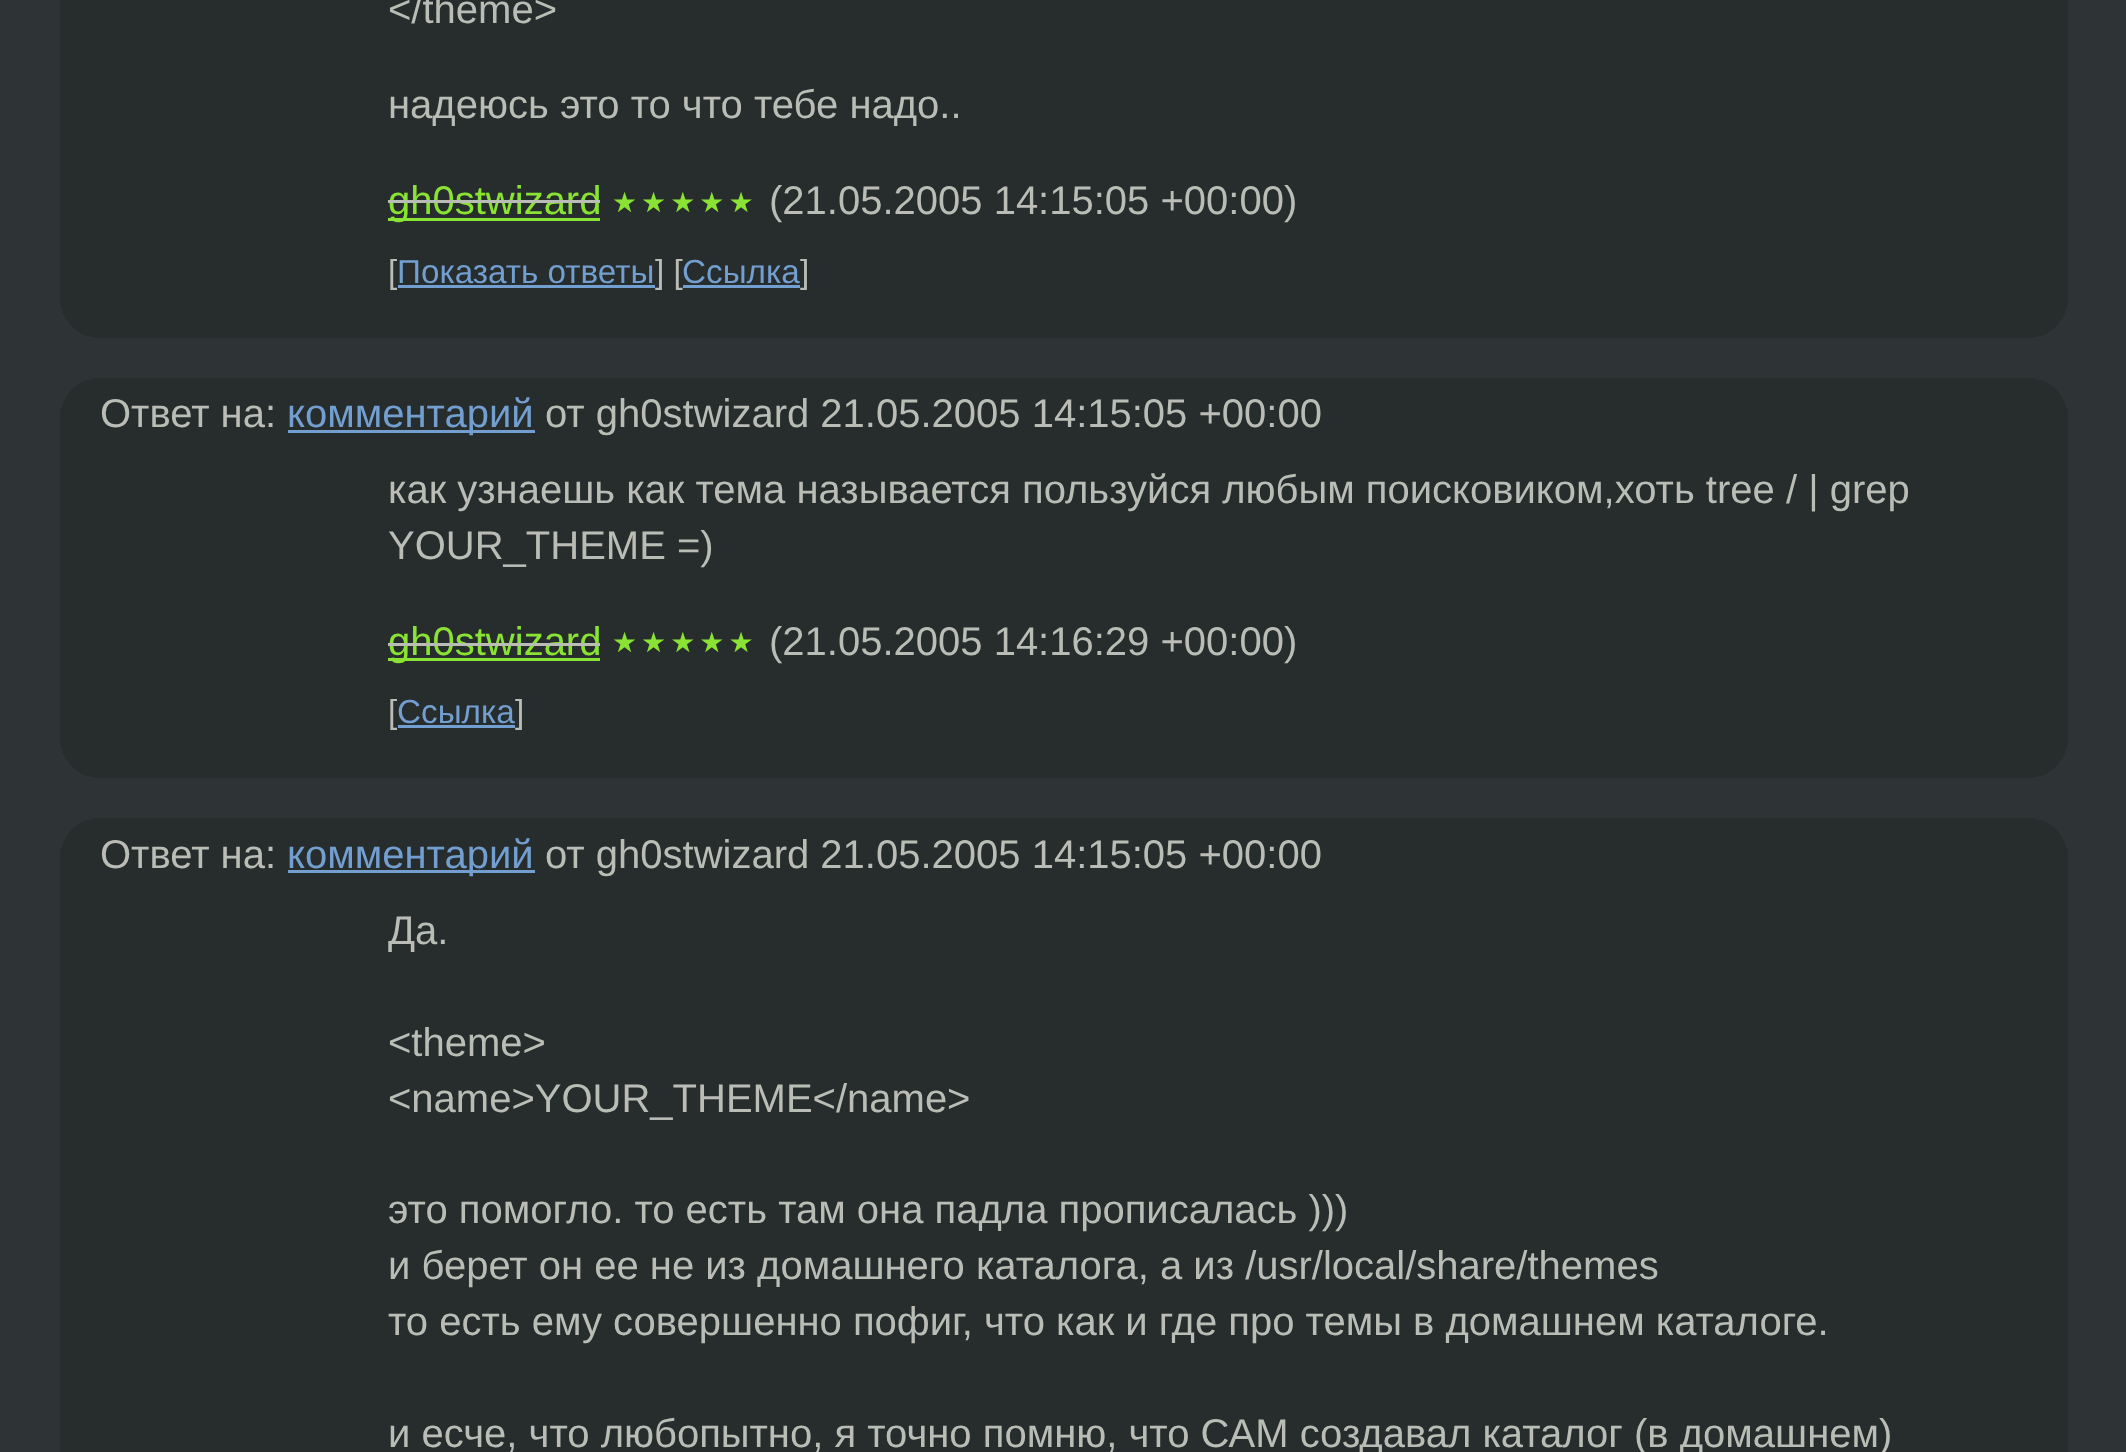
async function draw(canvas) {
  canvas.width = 2126
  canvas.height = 1452
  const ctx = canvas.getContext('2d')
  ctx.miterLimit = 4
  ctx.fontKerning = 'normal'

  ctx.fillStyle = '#2e3436'
  ctx.fillRect(0, 0, 2126, 1452)
  ctx.fillStyle = '#272c2d'
  ctx.beginPath()
  ctx.roundRect(60, -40, 2008, 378, 40)
  ctx.fill()
  ctx.font = '40px Liberation Sans'
  ctx.fillStyle = '#babdb6'
  ctx.fillText('<\/theme>', 388, 23)
  ctx.fillText('надеюсь это то что тебе надо..', 388, 118)
  ctx.fillStyle = '#8ae234'
  ctx.fillRect(388, 218, 212, 3)
  ctx.fillText('gh0stwizard', 388, 214)
  ctx.fillStyle = '#babdb6'
  ctx.fillRect(388, 200, 212, 3)
  ctx.letterSpacing = '4px'
  ctx.font = '28px DejaVu Sans'
  ctx.fillStyle = '#8ae234'
  ctx.fillText('★★★★★', 612, 212)
  ctx.letterSpacing = '0px'
  ctx.font = '40px Liberation Sans'
  ctx.fillStyle = '#babdb6'
  ctx.fillText('(21.05.2005 14:15:05 +00:00)', 769, 214)
  ctx.font = '33.25px Liberation Sans'
  ctx.fillText('[', 388, 283)
  ctx.fillStyle = '#729fcf'
  ctx.fillText('Показать ответы', 397, 283)
  ctx.fillRect(398, 285, 257, 3)
  ctx.fillStyle = '#babdb6'
  ctx.fillText('] [', 655, 283)
  ctx.fillStyle = '#729fcf'
  ctx.fillRect(683, 285, 117, 3)
  ctx.fillText('Ссылка', 682, 283)
  ctx.fillStyle = '#babdb6'
  ctx.fillText(']', 800, 283)
  ctx.fillStyle = '#272c2d'
  ctx.beginPath()
  ctx.roundRect(60, 378, 2008, 400, 40)
  ctx.fill()
  ctx.font = '40px Liberation Sans'
  ctx.fillStyle = '#babdb6'
  ctx.fillText('Ответ на:', 100, 427)
  ctx.fillStyle = '#729fcf'
  ctx.fillRect(288, 430, 247, 3)
  ctx.fillText('комментарий', 287, 427)
  ctx.fillStyle = '#babdb6'
  ctx.fillText('от gh0stwizard 21.05.2005 14:15:05 +00:00', 545, 427)
  ctx.fillText('как узнаешь как тема называется пользуйся любым поисковиком,хоть tree / | grep', 388, 503)
  ctx.fillText('YOUR_THEME =)', 388, 559)
  ctx.fillStyle = '#8ae234'
  ctx.fillRect(388, 658, 212, 3)
  ctx.fillText('gh0stwizard', 388, 655)
  ctx.fillStyle = '#babdb6'
  ctx.fillRect(388, 643, 212, 3)
  ctx.letterSpacing = '4px'
  ctx.font = '28px DejaVu Sans'
  ctx.fillStyle = '#8ae234'
  ctx.fillText('★★★★★', 612, 652)
  ctx.letterSpacing = '0px'
  ctx.font = '40px Liberation Sans'
  ctx.fillStyle = '#babdb6'
  ctx.fillText('(21.05.2005 14:16:29 +00:00)', 769, 655)
  ctx.font = '33.25px Liberation Sans'
  ctx.fillText('[', 388, 723)
  ctx.fillStyle = '#729fcf'
  ctx.fillText('Ссылка', 397, 723)
  ctx.fillRect(398, 725, 117, 3)
  ctx.fillStyle = '#babdb6'
  ctx.fillText(']', 515, 723)
  ctx.fillStyle = '#272c2d'
  ctx.beginPath()
  ctx.roundRect(60, 818, 2008, 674, 40)
  ctx.fill()
  ctx.font = '40px Liberation Sans'
  ctx.fillStyle = '#babdb6'
  ctx.fillText('Ответ на:', 100, 868)
  ctx.fillStyle = '#729fcf'
  ctx.fillRect(288, 870, 247, 3)
  ctx.fillText('комментарий', 287, 868)
  ctx.fillStyle = '#babdb6'
  ctx.fillText('от gh0stwizard 21.05.2005 14:15:05 +00:00', 545, 868)
  ctx.fillText('Да.', 388, 944)
  ctx.fillText('<theme>', 388, 1056)
  ctx.fillText('<name>YOUR_THEME<\/name>', 388, 1112)
  ctx.fillText('это помогло. то есть там она падла прописалась )))', 388, 1223)
  ctx.fillText('и берет он ее не из домашнего каталога, а из /usr/local/share/themes', 388, 1279)
  ctx.fillText('то есть ему совершенно пофиг, что как и где про темы в домашнем каталоге.', 388, 1335)
  ctx.fillText('и есче, что любопытно, я точно помню, что САМ создавал каталог (в домашнем)', 388, 1447)
}

draw(document.querySelector('canvas'))
